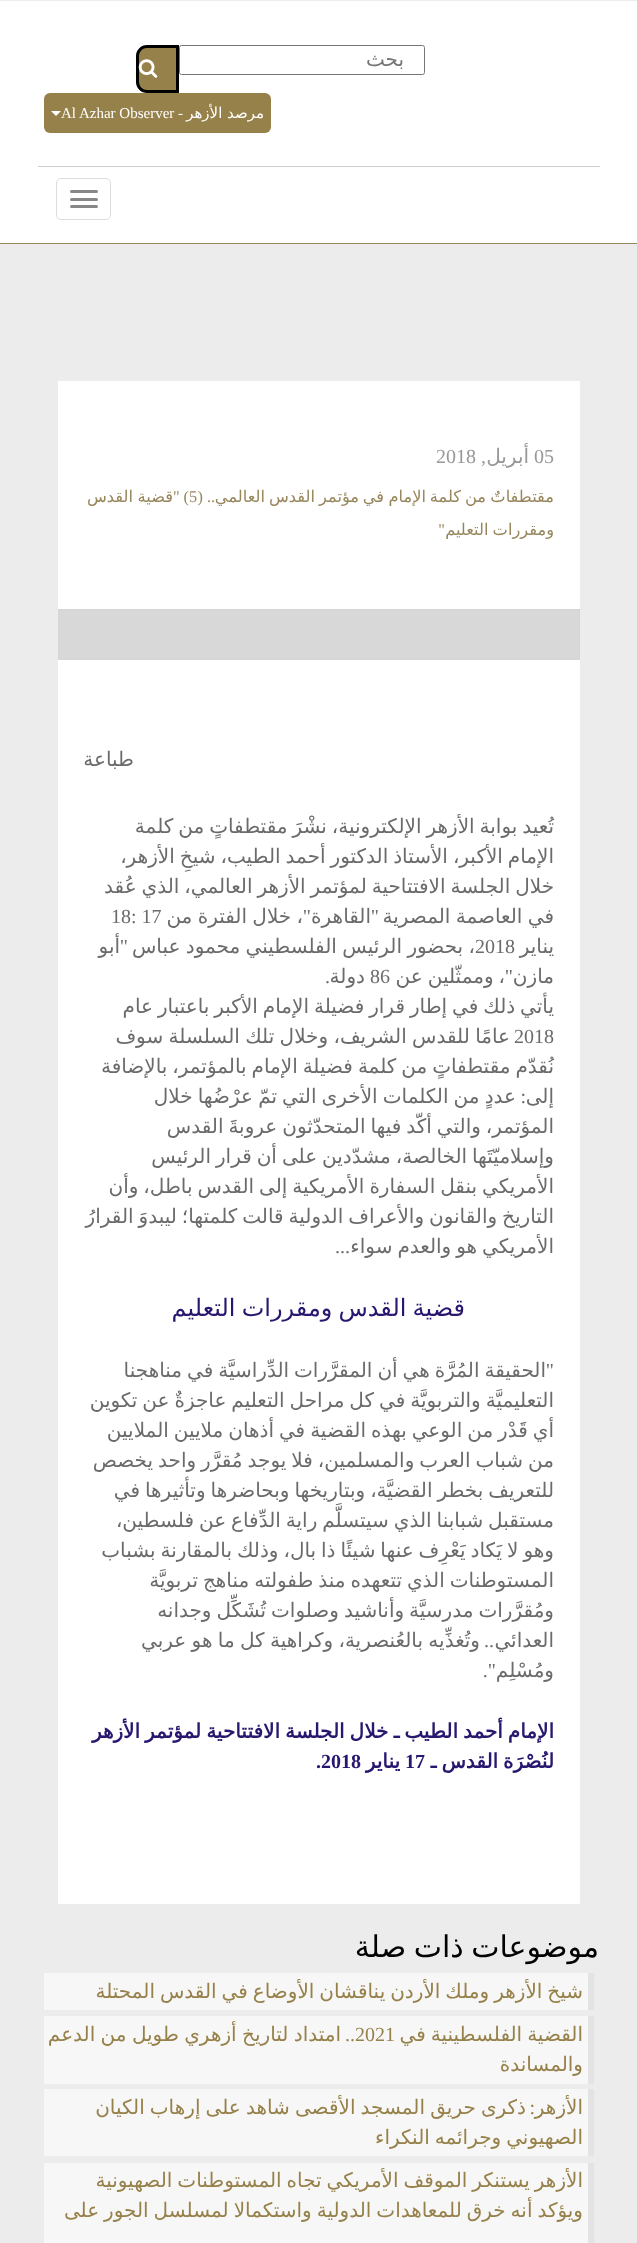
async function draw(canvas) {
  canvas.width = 637
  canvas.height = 2243
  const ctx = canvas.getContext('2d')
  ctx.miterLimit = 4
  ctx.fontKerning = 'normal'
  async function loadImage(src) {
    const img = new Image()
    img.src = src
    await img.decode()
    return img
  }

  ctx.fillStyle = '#ececec'
  ctx.fillRect(0, 0, 637, 2243)
  ctx.fillStyle = '#fff'
  ctx.fillRect(0, 1, 637, 242)
  ctx.fillStyle = '#97865c'
  ctx.fillRect(0, 243, 637, 1)
  ctx.fillStyle = '#cececf'
  ctx.fillRect(38, 166, 562, 1)
  ctx.beginPath()
  ctx.roundRect(179.5, 45.5, 245, 29, 2)
  ctx.strokeStyle = '#767676'
  ctx.stroke()
  ctx.direction = 'rtl'
  ctx.font = '20px DejaVu Sans'
  ctx.fillStyle = '#757575'
  ctx.fillText('بحث', 404, 66)
  ctx.fillStyle = '#97814a'
  ctx.beginPath()
  ctx.roundRect(137.5, 46.5, 40, 45, [9.5, 0, 0, 9.5])
  ctx.fill()
  ctx.strokeStyle = '#000'
  ctx.lineWidth = 3
  ctx.stroke()
  ctx.drawImage(await loadImage('image0.png'), 138, 59, 20, 19)
  ctx.beginPath()
  ctx.roundRect(44, 93, 227, 40, 6)
  ctx.fill()
  ctx.font = '15px DejaVu Sans'
  ctx.fillStyle = '#fff'
  ctx.fillText('مرصد الأزهر', 264, 118)
  ctx.font = '15px Liberation Serif'
  ctx.fillText('-', 183, 118)
  ctx.direction = 'ltr'
  ctx.fillText('Al Azhar Observer', 61, 118)
  ctx.beginPath()
  ctx.moveTo(51, 111)
  ctx.lineTo(61, 111)
  ctx.lineTo(56, 116)
  ctx.closePath()
  ctx.fill()
  ctx.beginPath()
  ctx.roundRect(56.5, 178.5, 54, 41, 4.5)
  ctx.strokeStyle = '#ddd'
  ctx.lineWidth = 1
  ctx.stroke()
  ctx.fillStyle = '#888'
  ctx.beginPath()
  ctx.roundRect(70, 190, 28, 3, 1.5)
  ctx.fill()
  ctx.beginPath()
  ctx.roundRect(70, 198, 28, 3, 1.5)
  ctx.fill()
  ctx.beginPath()
  ctx.roundRect(70, 205, 28, 3, 1.5)
  ctx.fill()
  ctx.fillStyle = '#fff'
  ctx.fillRect(58, 381, 522, 1523)
  ctx.font = '20px Liberation Serif'
  ctx.fillStyle = '#989898'
  ctx.fillText('05', 534, 463)
  ctx.direction = 'rtl'
  ctx.font = '20px DejaVu Sans'
  ctx.fillText('أبريل', 529, 463)
  ctx.font = '20px Liberation Serif'
  ctx.fillText(',', 486, 463)
  ctx.direction = 'ltr'
  ctx.fillText('2018', 436, 463)
  ctx.direction = 'rtl'
  ctx.font = '16.25px DejaVu Sans'
  ctx.fillStyle = '#97865c'
  ctx.fillText('مقتطفاتٌ', 554, 502)
  ctx.fillText('من', 486, 502)
  ctx.fillText('كلمة', 461, 502)
  ctx.fillText('الإمام', 426, 502)
  ctx.fillText('في', 384, 502)
  ctx.fillText('مؤتمر', 359, 502)
  ctx.fillText('القدس', 315, 502)
  ctx.fillText('العالمي', 265, 502)
  ctx.font = '16.25px Liberation Serif'
  ctx.fillText('.. (', 215, 502)
  ctx.direction = 'ltr'
  ctx.fillText('5', 189, 502)
  ctx.direction = 'rtl'
  ctx.fillText(') "', 189, 502)
  ctx.font = '16.25px DejaVu Sans'
  ctx.fillText('قضية', 173, 502)
  ctx.fillText('القدس', 133, 502)
  ctx.wordSpacing = '-1px'
  ctx.fillText('ومقررات التعليم', 554, 535)
  ctx.wordSpacing = '0px'
  ctx.font = '16.25px Liberation Serif'
  ctx.fillText('"', 445, 535)
  ctx.strokeStyle = '#d5d5d5'
  ctx.strokeRect(58.5, 609.5, 521, 50)
  ctx.fillStyle = '#d8d8d8'
  ctx.fillRect(59, 610, 520, 49)
  ctx.font = '20px DejaVu Sans'
  ctx.fillStyle = '#6b6b6b'
  ctx.fillText('طباعة', 134, 766)
  ctx.wordSpacing = '-1.4px'
  ctx.fillText('تُعيد بوابة الأزهر الإلكترونية، نشْرَ مقتطفاتٍ من كلمة', 554, 833)
  ctx.fillText('الإمام الأكبر، الأستاذ الدكتور أحمد الطيب، شيخِ الأزهر،', 554, 863)
  ctx.fillText('خلال الجلسة الافتتاحية لمؤتمر الأزهر العالمي، الذي عُقد', 554, 893)
  ctx.wordSpacing = '-1px'
  ctx.fillText('في العاصمة المصرية', 554, 923)
  ctx.wordSpacing = '0px'
  ctx.font = '20px Liberation Serif'
  ctx.fillText('"', 379, 923)
  ctx.font = '20px DejaVu Sans'
  ctx.fillText('القاهرة', 371, 923)
  ctx.wordSpacing = '-1px'
  ctx.fillText('، خلال الفترة من', 303, 923)
  ctx.wordSpacing = '0px'
  ctx.font = '20px Liberation Serif'
  ctx.fillText('"', 311, 923)
  ctx.direction = 'ltr'
  ctx.fillText('18: 17', 111, 923)
  ctx.direction = 'rtl'
  ctx.font = '20px DejaVu Sans'
  ctx.fillText('يناير', 554, 953)
  ctx.wordSpacing = '-1px'
  ctx.fillText('، بحضور الرئيس الفلسطيني محمود عباس', 475, 953)
  ctx.wordSpacing = '0px'
  ctx.direction = 'ltr'
  ctx.font = '20px Liberation Serif'
  ctx.fillText('2018', 475, 953)
  ctx.direction = 'rtl'
  ctx.fillText('"', 128, 953)
  ctx.font = '20px DejaVu Sans'
  ctx.fillText('أبو', 120, 953)
  ctx.fillText('مازن', 554, 983)
  ctx.wordSpacing = '-1.4px'
  ctx.fillText('، وممثّلين عن', 505, 983)
  ctx.wordSpacing = '0px'
  ctx.font = '20px Liberation Serif'
  ctx.fillText('"', 513, 983)
  ctx.direction = 'ltr'
  ctx.fillText('86', 370, 983)
  ctx.direction = 'rtl'
  ctx.font = '20px DejaVu Sans'
  ctx.fillText('دولة', 365, 983)
  ctx.font = '20px Liberation Serif'
  ctx.fillText('.', 330, 983)
  ctx.wordSpacing = '-1.4px'
  ctx.font = '20px DejaVu Sans'
  ctx.fillText('يأتي ذلك في إطار قرار فضيلة الإمام الأكبر باعتبار عام', 554, 1013)
  ctx.wordSpacing = '-1px'
  ctx.fillText('عامًا للقدس الشريف، وخلال تلك السلسلة سوف', 510, 1043)
  ctx.wordSpacing = '0px'
  ctx.direction = 'ltr'
  ctx.font = '20px Liberation Serif'
  ctx.fillText('2018', 514, 1043)
  ctx.wordSpacing = '-1.4px'
  ctx.direction = 'rtl'
  ctx.font = '20px DejaVu Sans'
  ctx.fillText('نُقدّم مقتطفاتٍ من كلمة فضيلة الإمام بالمؤتمر، بالإضافة', 554, 1073)
  ctx.wordSpacing = '0px'
  ctx.fillText('إلى', 554, 1103)
  ctx.wordSpacing = '-1.25px'
  ctx.fillText('عددٍ من الكلمات الأخرى التي تمّ عرْضُها خلال', 516, 1103)
  ctx.wordSpacing = '0px'
  ctx.font = '20px Liberation Serif'
  ctx.fillText(':', 526, 1103)
  ctx.wordSpacing = '-1.4px'
  ctx.font = '20px DejaVu Sans'
  ctx.fillText('المؤتمر، والتي أكّد فيها المتحدّثون عروبةَ القدس', 554, 1133)
  ctx.fillText('وإسلاميّتَها الخالصة، مشدّدين على أن قرار الرئيس', 554, 1163)
  ctx.fillText('الأمريكي بنقل السفارة الأمريكية إلى القدس باطل، وأن', 554, 1193)
  ctx.fillText('التاريخ والقانون والأعراف الدولية قالت كلمتها؛ ليبدوَ القرارُ', 554, 1223)
  ctx.fillText('الأمريكي هو والعدم سواء', 554, 1253)
  ctx.wordSpacing = '0px'
  ctx.font = '20px Liberation Serif'
  ctx.fillText('...', 350, 1253)
  ctx.wordSpacing = '-1.5px'
  ctx.font = '24px DejaVu Sans'
  ctx.fillStyle = '#28166f'
  ctx.fillText('قضية القدس ومقررات التعليم', 465, 1316)
  ctx.wordSpacing = '-1.4px'
  ctx.font = '20px DejaVu Sans'
  ctx.fillStyle = '#6b6b6b'
  ctx.fillText('الحقيقة المُرَّة هي أن المقرَّرات الدِّراسيَّة في مناهجنا', 546, 1377)
  ctx.wordSpacing = '0px'
  ctx.font = '20px Liberation Serif'
  ctx.fillText('"', 554, 1377)
  ctx.wordSpacing = '-1.4px'
  ctx.font = '20px DejaVu Sans'
  ctx.fillText('التعليميَّة والتربويَّة في كل مراحل التعليم عاجزةٌ عن تكوين', 554, 1407)
  ctx.fillText('أي قَدْر من الوعي بهذه القضية في أذهان ملايين الملايين', 554, 1437)
  ctx.fillText('من شباب العرب والمسلمين، فلا يوجد مُقرَّر واحد يخصص', 554, 1467)
  ctx.fillText('للتعريف بخطر القضيَّة، وبتاريخها وبحاضرها وتأثيرها في', 554, 1497)
  ctx.fillText('مستقبل شبابنا الذي سيتسلَّم راية الدِّفاع عن فلسطين،', 554, 1527)
  ctx.fillText('وهو لا يَكاد يَعْرِف عنها شيئًا ذا بال، وذلك بالمقارنة بشباب', 554, 1557)
  ctx.fillText('المستوطنات الذي تتعهده منذ طفولته مناهج تربويَّة', 554, 1587)
  ctx.fillText('ومُقرَّرات مدرسيَّة وأناشيد وصلوات تُشَكِّل وجدانه', 554, 1617)
  ctx.wordSpacing = '0px'
  ctx.fillText('العدائي', 554, 1647)
  ctx.wordSpacing = '-1px'
  ctx.fillText('وتُغذِّيه بالعُنصرية، وكراهية كل ما هو عربي', 480, 1647)
  ctx.wordSpacing = '0px'
  ctx.font = '20px Liberation Serif'
  ctx.fillText('..', 494, 1647)
  ctx.font = '20px DejaVu Sans'
  ctx.fillText('ومُسْلِم', 554, 1677)
  ctx.font = '20px Liberation Serif'
  ctx.fillText('".', 496, 1677)
  ctx.wordSpacing = '-1.4px'
  ctx.font = 'bold 20px DejaVu Sans'
  ctx.fillStyle = '#28166f'
  ctx.fillText('الإمام أحمد الطيب ـ خلال الجلسة الافتتاحية لمؤتمر الأزهر', 554, 1738)
  ctx.fillText('لنُصْرَة القدس ـ', 554, 1768)
  ctx.wordSpacing = '0px'
  ctx.direction = 'ltr'
  ctx.font = 'bold 20px Liberation Serif'
  ctx.fillText('17', 405, 1768)
  ctx.direction = 'rtl'
  ctx.font = 'bold 20px DejaVu Sans'
  ctx.fillText('يناير', 400, 1768)
  ctx.direction = 'ltr'
  ctx.font = 'bold 20px Liberation Serif'
  ctx.fillText('.2018', 316, 1768)
  ctx.wordSpacing = '-2px'
  ctx.direction = 'rtl'
  ctx.font = '30px DejaVu Sans'
  ctx.fillStyle = '#020202'
  ctx.fillText('موضوعات ذات صلة', 599, 1957)
  ctx.fillStyle = '#f7f7f7'
  ctx.fillRect(44, 1973, 544, 37)
  ctx.fillStyle = '#e3e3e3'
  ctx.fillRect(588, 1973, 6, 37)
  ctx.wordSpacing = '-1.4px'
  ctx.font = '20px DejaVu Sans'
  ctx.fillStyle = '#97814a'
  ctx.fillText('شيخ الأزهر وملك الأردن يناقشان الأوضاع في القدس المحتلة', 583, 1998)
  ctx.fillStyle = '#f7f7f7'
  ctx.fillRect(44, 2016, 544, 68)
  ctx.fillStyle = '#e3e3e3'
  ctx.fillRect(588, 2016, 6, 68)
  ctx.fillStyle = '#97814a'
  ctx.fillText('القضية الفلسطينية في', 583, 2041)
  ctx.wordSpacing = '0px'
  ctx.direction = 'ltr'
  ctx.font = '20px Liberation Serif'
  ctx.fillText('2021', 355, 2041)
  ctx.direction = 'rtl'
  ctx.fillText('..', 355, 2041)
  ctx.wordSpacing = '-1px'
  ctx.font = '20px DejaVu Sans'
  ctx.fillText('امتداد لتاريخ أزهري طويل من الدعم', 341, 2041)
  ctx.wordSpacing = '0px'
  ctx.fillText('والمساندة', 583, 2071)
  ctx.fillStyle = '#f7f7f7'
  ctx.fillRect(44, 2089, 544, 67)
  ctx.fillStyle = '#e3e3e3'
  ctx.fillRect(588, 2089, 6, 67)
  ctx.fillStyle = '#97814a'
  ctx.fillText('الأزهر', 583, 2114)
  ctx.wordSpacing = '-1.25px'
  ctx.fillText('ذكرى حريق المسجد الأقصى شاهد على إرهاب الكيان', 526, 2114)
  ctx.wordSpacing = '0px'
  ctx.font = '20px Liberation Serif'
  ctx.fillText(':', 535, 2114)
  ctx.wordSpacing = '-1.4px'
  ctx.font = '20px DejaVu Sans'
  ctx.fillText('الصهيوني وجرائمه النكراء', 583, 2144)
  ctx.fillStyle = '#f7f7f7'
  ctx.fillRect(44, 2163, 544, 80)
  ctx.fillStyle = '#e3e3e3'
  ctx.fillRect(588, 2163, 6, 80)
  ctx.fillStyle = '#97814a'
  ctx.fillText('الأزهر يستنكر الموقف الأمريكي تجاه المستوطنات الصهيونية', 583, 2187)
  ctx.fillText('ويؤكد أنه خرق للمعاهدات الدولية واستكمالا لمسلسل الجور على', 583, 2217)
}

draw(document.querySelector('canvas'))
